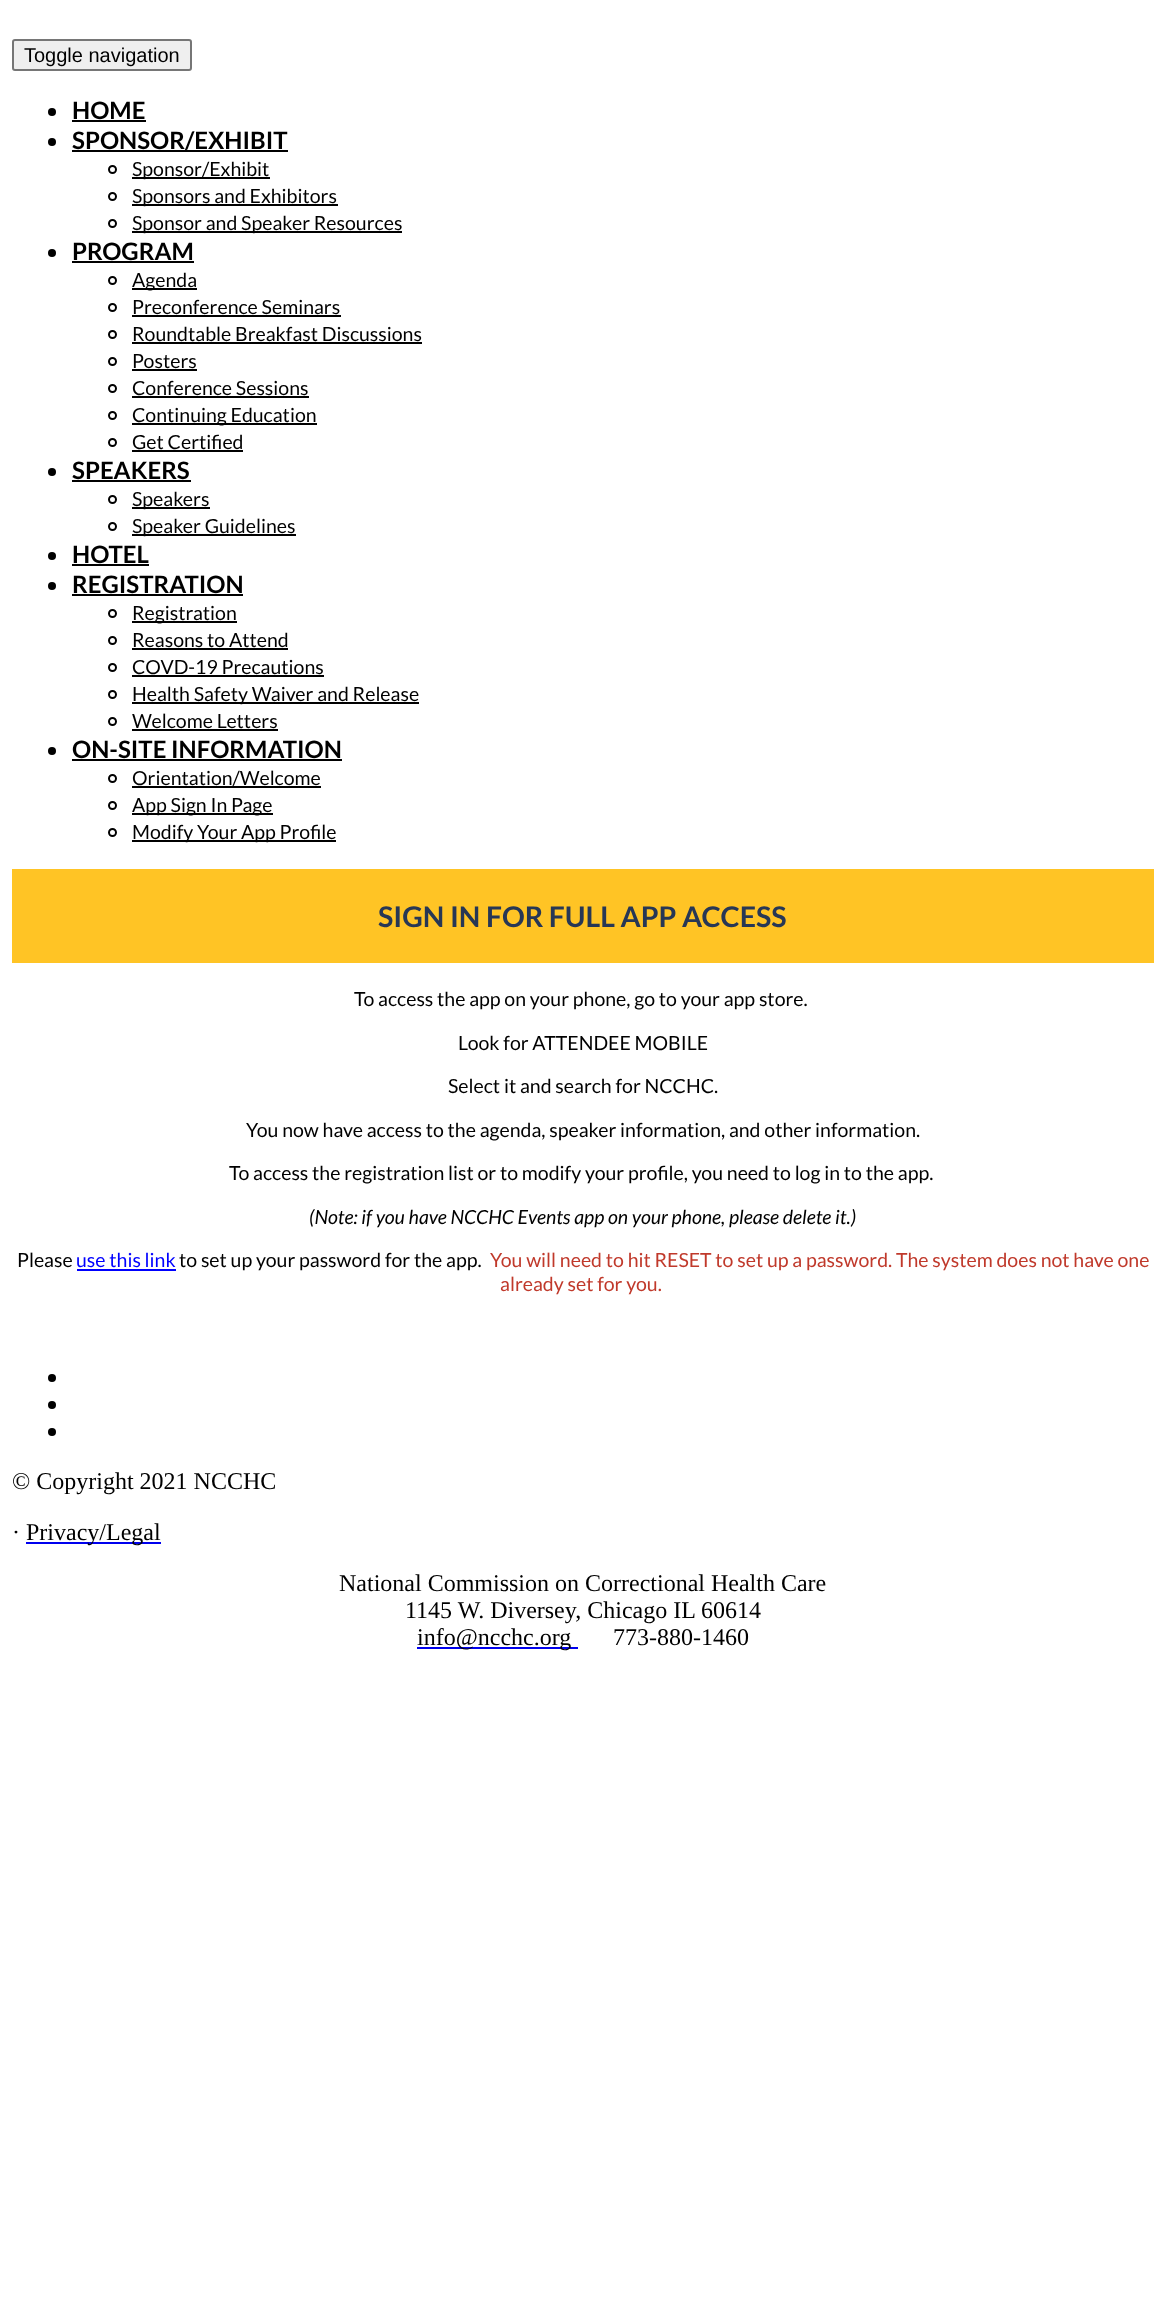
async function draw(canvas) {
  canvas.width = 1165
  canvas.height = 2318
  const ctx = canvas.getContext('2d')
  ctx.miterLimit = 4
  ctx.fontKerning = 'normal'

  ctx.fillStyle = '#fff'
  ctx.fillRect(0, 0, 1165, 2318)
  ctx.fillStyle = '#efefef'
  ctx.beginPath()
  ctx.roundRect(13, 40, 178, 30, 2)
  ctx.fill()
  ctx.strokeStyle = '#767676'
  ctx.lineWidth = 2
  ctx.stroke()
  ctx.font = '20px Liberation Sans'
  ctx.fillStyle = '#000'
  ctx.fillText('Toggle navigation', 24, 62)
  ctx.beginPath()
  ctx.arc(52, 112, 4, 0, 2 * Math.PI)
  ctx.fill()
  ctx.font = 'bold 24px Lato'
  ctx.fillText('HOME', 72, 119)
  ctx.fillRect(72, 120, 74, 2)
  ctx.beginPath()
  ctx.arc(52, 142, 4, 0, 2 * Math.PI)
  ctx.fill()
  ctx.fillRect(72, 150, 216, 2)
  ctx.fillText('SPONSOR/EXHIBIT', 72, 149)
  ctx.beginPath()
  ctx.arc(112.5, 169.5, 3.5, 0, 2 * Math.PI)
  ctx.strokeStyle = '#000'
  ctx.stroke()
  ctx.fillRect(132, 177, 138, 2)
  ctx.font = '19.5px Lato'
  ctx.fillText('Sponsor/Exhibit', 132, 176)
  ctx.beginPath()
  ctx.arc(112.5, 196.5, 3.5, 0, 2 * Math.PI)
  ctx.stroke()
  ctx.fillRect(132, 204, 206, 2)
  ctx.fillText('Sponsors and Exhibitors', 132, 203)
  ctx.beginPath()
  ctx.arc(112.5, 223.5, 3.5, 0, 2 * Math.PI)
  ctx.stroke()
  ctx.fillRect(132, 231, 270, 2)
  ctx.fillText('Sponsor and Speaker Resources', 132, 230)
  ctx.beginPath()
  ctx.arc(52, 253, 4, 0, 2 * Math.PI)
  ctx.fill()
  ctx.font = 'bold 24px Lato'
  ctx.fillText('PROGRAM', 72, 260)
  ctx.fillRect(72, 261, 122, 2)
  ctx.beginPath()
  ctx.arc(112.5, 280.5, 3.5, 0, 2 * Math.PI)
  ctx.stroke()
  ctx.fillRect(132, 288, 65, 2)
  ctx.font = '19.5px Lato'
  ctx.fillText('Agenda', 132, 287)
  ctx.beginPath()
  ctx.arc(112.5, 307.5, 3.5, 0, 2 * Math.PI)
  ctx.stroke()
  ctx.fillText('Preconference Seminars', 132, 314)
  ctx.fillRect(132, 315, 209, 2)
  ctx.beginPath()
  ctx.arc(112.5, 334.5, 3.5, 0, 2 * Math.PI)
  ctx.stroke()
  ctx.fillText('Roundtable Breakfast Discussions', 132, 341)
  ctx.fillRect(132, 342, 290, 2)
  ctx.beginPath()
  ctx.arc(112.5, 361.5, 3.5, 0, 2 * Math.PI)
  ctx.stroke()
  ctx.fillText('Posters', 132, 368)
  ctx.fillRect(132, 369, 65, 2)
  ctx.beginPath()
  ctx.arc(112.5, 388.5, 3.5, 0, 2 * Math.PI)
  ctx.stroke()
  ctx.fillText('Conference Sessions', 132, 395)
  ctx.fillRect(132, 396, 177, 2)
  ctx.beginPath()
  ctx.arc(112.5, 415.5, 3.5, 0, 2 * Math.PI)
  ctx.stroke()
  ctx.fillRect(132, 423, 185, 2)
  ctx.fillText('Continuing Education', 132, 422)
  ctx.beginPath()
  ctx.arc(112.5, 442.5, 3.5, 0, 2 * Math.PI)
  ctx.stroke()
  ctx.fillText('Get Certified', 132, 449)
  ctx.fillRect(132, 450, 111, 2)
  ctx.beginPath()
  ctx.arc(52, 472, 4, 0, 2 * Math.PI)
  ctx.fill()
  ctx.font = 'bold 24px Lato'
  ctx.fillText('SPEAKERS', 72, 479)
  ctx.fillRect(72, 480, 119, 2)
  ctx.beginPath()
  ctx.arc(112.5, 499.5, 3.5, 0, 2 * Math.PI)
  ctx.stroke()
  ctx.fillRect(132, 507, 78, 2)
  ctx.font = '19.5px Lato'
  ctx.fillText('Speakers', 132, 506)
  ctx.beginPath()
  ctx.arc(112.5, 526.5, 3.5, 0, 2 * Math.PI)
  ctx.stroke()
  ctx.fillRect(132, 534, 164, 2)
  ctx.fillText('Speaker Guidelines', 132, 533)
  ctx.beginPath()
  ctx.arc(52, 556, 4, 0, 2 * Math.PI)
  ctx.fill()
  ctx.font = 'bold 24px Lato'
  ctx.fillText('HOTEL', 72, 563)
  ctx.fillRect(72, 564, 77, 2)
  ctx.beginPath()
  ctx.arc(52, 586, 4, 0, 2 * Math.PI)
  ctx.fill()
  ctx.fillText('REGISTRATION', 72, 593)
  ctx.fillRect(72, 594, 171, 2)
  ctx.beginPath()
  ctx.arc(112.5, 613.5, 3.5, 0, 2 * Math.PI)
  ctx.stroke()
  ctx.fillRect(132, 621, 105, 2)
  ctx.font = '19.5px Lato'
  ctx.fillText('Registration', 132, 620)
  ctx.beginPath()
  ctx.arc(112.5, 640.5, 3.5, 0, 2 * Math.PI)
  ctx.stroke()
  ctx.fillText('Reasons to Attend', 132, 647)
  ctx.fillRect(132, 648, 156, 2)
  ctx.beginPath()
  ctx.arc(112.5, 667.5, 3.5, 0, 2 * Math.PI)
  ctx.stroke()
  ctx.fillText('COVD-19 Precautions', 132, 674)
  ctx.fillRect(132, 675, 192, 2)
  ctx.beginPath()
  ctx.arc(112.5, 694.5, 3.5, 0, 2 * Math.PI)
  ctx.stroke()
  ctx.fillRect(132, 702, 287, 2)
  ctx.fillText('Health Safety Waiver and Release', 132, 701)
  ctx.beginPath()
  ctx.arc(112.5, 721.5, 3.5, 0, 2 * Math.PI)
  ctx.stroke()
  ctx.fillText('Welcome Letters', 132, 728)
  ctx.fillRect(132, 729, 146, 2)
  ctx.beginPath()
  ctx.arc(52, 751, 4, 0, 2 * Math.PI)
  ctx.fill()
  ctx.font = 'bold 24px Lato'
  ctx.fillText('ON-SITE INFORMATION', 72, 758)
  ctx.fillRect(72, 759, 270, 2)
  ctx.beginPath()
  ctx.arc(112.5, 778.5, 3.5, 0, 2 * Math.PI)
  ctx.stroke()
  ctx.font = '19.5px Lato'
  ctx.fillText('Orientation/Welcome', 132, 785)
  ctx.fillRect(132, 786, 189, 2)
  ctx.beginPath()
  ctx.arc(112.5, 805.5, 3.5, 0, 2 * Math.PI)
  ctx.stroke()
  ctx.fillRect(132, 813, 141, 2)
  ctx.fillText('App Sign In Page', 132, 812)
  ctx.beginPath()
  ctx.arc(112.5, 832.5, 3.5, 0, 2 * Math.PI)
  ctx.stroke()
  ctx.fillRect(132, 840, 204, 2)
  ctx.fillText('Modify Your App Profile', 132, 839)
  ctx.fillStyle = '#ffc425'
  ctx.fillRect(12, 869, 1142, 94)
  ctx.font = 'bold 28.5px Lato'
  ctx.fillStyle = '#273755'
  ctx.fillText('SIGN IN FOR FULL APP ACCESS', 378, 927)
  ctx.font = '19.5px Lato'
  ctx.fillStyle = '#000'
  ctx.fillText('To access the app on your phone, go to your app store.', 354, 1006)
  ctx.fillText('Look for ATTENDEE MOBILE', 458, 1050)
  ctx.fillText('Select it and search for NCCHC.', 448, 1093)
  ctx.fillText('You now have access to the agenda, speaker information, and other information.', 246, 1137)
  ctx.fillText('To access the registration list or to modify your profile, you need to log in to the app.', 229, 1180)
  ctx.font = 'italic 19.5px Lato'
  ctx.fillText('(Note: if you have NCCHC Events app on your phone, please delete it.)', 309, 1224)
  ctx.font = '19.5px Lato'
  ctx.fillText('Please', 17, 1267)
  ctx.fillStyle = '#00f'
  ctx.fillText('use this link', 76, 1267)
  ctx.fillRect(77, 1269, 99, 2)
  ctx.fillStyle = '#000'
  ctx.fillText('to set up your password for the app.', 179, 1267)
  ctx.fillStyle = '#c0392b'
  ctx.fillText('You will need to hit RESET to set up a password. The system does not have one', 490, 1267)
  ctx.fillText('already set for you.', 500, 1291)
  ctx.fillStyle = '#000'
  ctx.beginPath()
  ctx.arc(52, 1378, 4, 0, 2 * Math.PI)
  ctx.fill()
  ctx.beginPath()
  ctx.arc(52, 1405, 4, 0, 2 * Math.PI)
  ctx.fill()
  ctx.beginPath()
  ctx.arc(52, 1432, 4, 0, 2 * Math.PI)
  ctx.fill()
  ctx.font = '24px Liberation Serif'
  ctx.fillText('© Copyright 2021 NCCHC', 12, 1489)
  ctx.fillText('·', 12, 1540)
  ctx.fillStyle = '#00e'
  ctx.fillRect(26, 1542, 135, 2)
  ctx.fillStyle = '#000'
  ctx.fillText('Privacy/Legal', 26, 1540)
  ctx.fillText('National Commission on Correctional Health Care', 339, 1591)
  ctx.fillText('1145 W. Diversey, Chicago IL 60614', 405, 1618)
  ctx.fillStyle = '#00e'
  ctx.fillRect(417, 1647, 161, 2)
  ctx.fillStyle = '#000'
  ctx.fillText('info@ncchc.org', 417, 1645)
  ctx.fillText('773-880-1460', 613, 1645)
}

draw(document.querySelector('canvas'))
